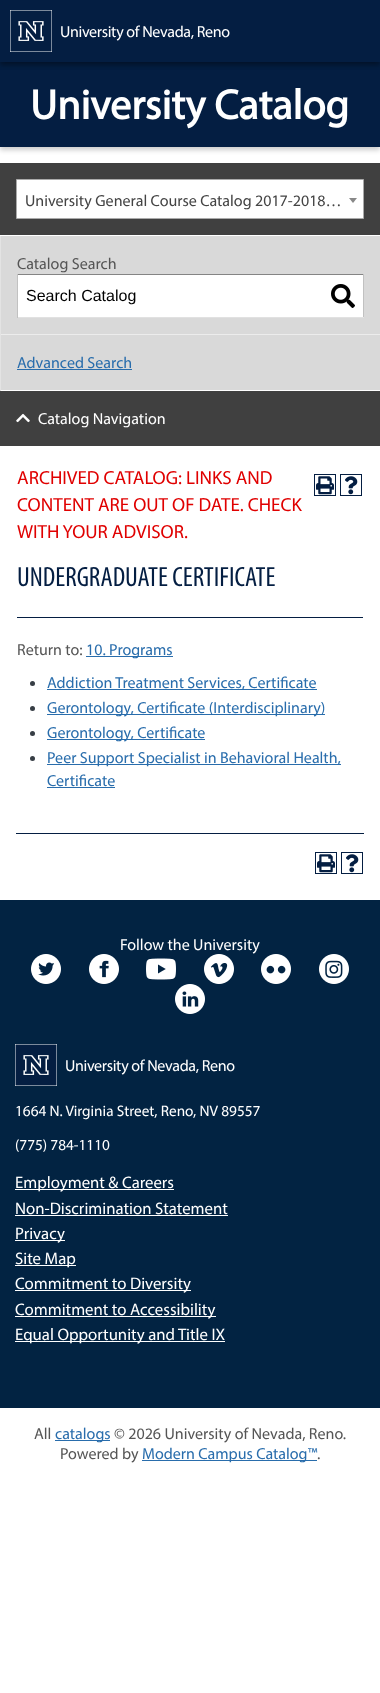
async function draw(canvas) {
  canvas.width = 380
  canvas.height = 1693
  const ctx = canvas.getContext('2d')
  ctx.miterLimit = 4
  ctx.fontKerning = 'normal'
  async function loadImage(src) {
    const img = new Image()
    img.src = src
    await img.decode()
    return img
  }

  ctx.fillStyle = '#fff'
  ctx.fillRect(0, 0, 380, 1693)
  ctx.fillStyle = '#00000033'
  ctx.filter = 'blur(2.5px)'
  ctx.beginPath()
  ctx.rect(0, 65, 380, 85)
  ctx.fill()
  ctx.filter = 'none'
  ctx.fillStyle = '#041e42'
  ctx.fillRect(0, 62, 380, 85)
  ctx.fillStyle = '#00000033'
  ctx.filter = 'blur(2.5px)'
  ctx.beginPath()
  ctx.rect(0, 3, 380, 62)
  ctx.fill()
  ctx.filter = 'none'
  ctx.filter = 'blur(2.5px)'
  ctx.beginPath()
  ctx.rect(0, 3, 380, 62)
  ctx.fill()
  ctx.filter = 'none'
  ctx.fillStyle = '#041e42'
  ctx.fillRect(0, 0, 380, 62)
  ctx.drawImage(await loadImage('image0.png'), 10, 10, 42, 42)
  ctx.letterSpacing = '-0.35px'
  ctx.font = '16px "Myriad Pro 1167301"'
  ctx.fillStyle = '#fff'
  ctx.fillText('University of Nevada, Reno', 60, 37)
  ctx.letterSpacing = '0px'
  ctx.font = 'bold 42px "Myriad Pro 1167301"'
  ctx.fillText('University Catalog', 30, 119)
  ctx.fillStyle = '#404040'
  ctx.fillRect(0, 163, 380, 72)
  ctx.fillStyle = '#fff'
  ctx.beginPath()
  ctx.rect(16.5, 179.5, 347, 39)
  ctx.fill()
  ctx.strokeStyle = '#aaa'
  ctx.stroke()
  ctx.font = '16px "Myriad Pro 1167301"'
  ctx.fillStyle = '#444'
  ctx.fillText('University General Course Catalog 2017-2018…', 25, 206)
  ctx.fillStyle = '#888'
  ctx.beginPath()
  ctx.moveTo(349, 198)
  ctx.lineTo(357, 198)
  ctx.lineTo(353, 203)
  ctx.closePath()
  ctx.fill()
  ctx.fillStyle = '#d9d9d9'
  ctx.fillRect(1, 236, 379, 154)
  ctx.fillStyle = '#e3e3e3'
  ctx.fillRect(0, 236, 1, 155)
  ctx.fillStyle = '#555'
  ctx.fillText('Catalog Search', 17, 269)
  ctx.fillStyle = '#fff'
  ctx.fillRect(18, 275, 345, 42)
  ctx.fillStyle = '#848484'
  ctx.fillRect(17, 274, 347, 1)
  ctx.fillStyle = '#c1c1c1'
  ctx.fillRect(363, 274, 1, 44)
  ctx.fillStyle = '#e1e1e1'
  ctx.fillRect(17, 317, 347, 1)
  ctx.fillStyle = '#c1c1c1'
  ctx.fillRect(17, 274, 1, 44)
  ctx.font = '16px Liberation Sans'
  ctx.fillStyle = '#000'
  ctx.fillText('Search Catalog', 26, 301)
  ctx.drawImage(await loadImage('image1.png'), 331, 284, 24, 24)
  ctx.fillStyle = '#ececec'
  ctx.fillRect(1, 334, 379, 1)
  ctx.font = '16px "Myriad Pro 1167301"'
  ctx.fillStyle = '#296dac'
  ctx.fillText('Advanced Search', 17, 368)
  ctx.fillRect(17, 369, 115, 1)
  ctx.fillStyle = '#404040'
  ctx.fillRect(0, 391, 380, 55)
  ctx.drawImage(await loadImage('image2.png'), 16, 413, 14, 10)
  ctx.fillStyle = '#fff'
  ctx.fillText('Catalog Navigation', 38, 424)
  ctx.font = '19px "Myriad Pro 1167301"'
  ctx.fillStyle = '#e00000'
  ctx.fillText('ARCHIVED CATALOG: LINKS AND', 17, 484)
  ctx.strokeStyle = '#041e42'
  ctx.strokeRect(314.5, 474.5, 21, 21)
  ctx.drawImage(await loadImage('image3.png'), 316, 476, 18, 19)
  ctx.strokeRect(340.5, 474.5, 21, 21)
  ctx.drawImage(await loadImage('image4.png'), 345, 476, 13, 19)
  ctx.fillText('CONTENT ARE OUT OF DATE. CHECK', 17, 511)
  ctx.fillText('WITH YOUR ADVISOR.', 17, 538)
  ctx.font = '28px "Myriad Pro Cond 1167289"'
  ctx.fillStyle = '#041e42'
  ctx.fillText('UNDERGRADUATE CERTIFICATE', 17, 586)
  ctx.fillRect(17, 617, 346, 1)
  ctx.font = '16px "Myriad Pro 1167301"'
  ctx.fillStyle = '#555'
  ctx.fillText('Return to:', 17, 655)
  ctx.fillStyle = '#296dac'
  ctx.fillRect(86, 656, 87, 1)
  ctx.fillText('10. Programs', 86, 655)
  ctx.fillStyle = '#373e45'
  ctx.beginPath()
  ctx.arc(32.5, 683.5, 2.5, 0, 2 * Math.PI)
  ctx.fill()
  ctx.fillStyle = '#296dac'
  ctx.fillRect(47, 689, 270, 1)
  ctx.fillText('Addiction Treatment Services, Certificate', 47, 688)
  ctx.fillStyle = '#373e45'
  ctx.beginPath()
  ctx.arc(32.5, 708.5, 2.5, 0, 2 * Math.PI)
  ctx.fill()
  ctx.fillStyle = '#296dac'
  ctx.fillRect(47, 714, 278, 1)
  ctx.fillText('Gerontology, Certificate (Interdisciplinary)', 47, 713)
  ctx.fillStyle = '#373e45'
  ctx.beginPath()
  ctx.arc(32.5, 733.5, 2.5, 0, 2 * Math.PI)
  ctx.fill()
  ctx.fillStyle = '#296dac'
  ctx.fillRect(47, 739, 158, 1)
  ctx.fillText('Gerontology, Certificate', 47, 738)
  ctx.fillStyle = '#373e45'
  ctx.beginPath()
  ctx.arc(32.5, 758.5, 2.5, 0, 2 * Math.PI)
  ctx.fill()
  ctx.fillStyle = '#296dac'
  ctx.fillRect(47, 764, 294, 1)
  ctx.fillText('Peer Support Specialist in Behavioral Health,', 47, 763)
  ctx.fillText('Certificate', 47, 786)
  ctx.fillRect(47, 787, 68, 1)
  ctx.fillStyle = '#041e42'
  ctx.fillRect(16, 833, 348, 1)
  ctx.strokeRect(315.5, 852.5, 21, 21)
  ctx.drawImage(await loadImage('image3.png'), 317, 854, 18, 19)
  ctx.strokeRect(341.5, 852.5, 21, 21)
  ctx.drawImage(await loadImage('image4.png'), 346, 854, 13, 19)
  ctx.fillStyle = '#022342'
  ctx.fillRect(0, 900, 380, 508)
  ctx.fillStyle = '#fff'
  ctx.fillText('Follow the University', 120, 950)
  ctx.drawImage(await loadImage('image5.png'), 31, 954, 30, 30)
  ctx.drawImage(await loadImage('image6.png'), 89, 954, 30, 30)
  ctx.drawImage(await loadImage('image7.png'), 146, 958, 30, 22)
  ctx.drawImage(await loadImage('image8.png'), 204, 954, 30, 30)
  ctx.drawImage(await loadImage('image9.png'), 261, 954, 30, 30)
  ctx.drawImage(await loadImage('image10.png'), 319, 954, 30, 30)
  ctx.drawImage(await loadImage('image11.png'), 175, 984, 30, 30)
  ctx.drawImage(await loadImage('image0.png'), 15, 1044, 42, 42)
  ctx.letterSpacing = '-0.35px'
  ctx.fillText('University of Nevada, Reno', 65, 1071)
  ctx.letterSpacing = '0px'
  ctx.font = '15.25px "Myriad Pro 1167301"'
  ctx.fillText('1664 N. Virginia Street, Reno, NV 89557', 15, 1116)
  ctx.fillText('(775) 784-1110', 15, 1150)
  ctx.fillRect(15, 1189, 159, 1)
  ctx.font = '16.75px "Myriad Pro 1167301"'
  ctx.fillText('Employment & Careers', 15, 1188)
  ctx.fillText('Non-Discrimination Statement', 15, 1214)
  ctx.fillRect(15, 1215, 213, 1)
  ctx.fillRect(15, 1240, 50, 1)
  ctx.fillText('Privacy', 15, 1239)
  ctx.fillRect(15, 1265, 61, 1)
  ctx.fillText('Site Map', 15, 1264)
  ctx.fillRect(15, 1290, 176, 1)
  ctx.fillText('Commitment to Diversity', 15, 1289)
  ctx.fillRect(15, 1316, 201, 1)
  ctx.fillText('Commitment to Accessibility', 15, 1315)
  ctx.fillRect(15, 1341, 210, 1)
  ctx.fillText('Equal Opportunity and Title IX', 15, 1340)
  ctx.font = '16px "Myriad Pro 1167301"'
  ctx.fillStyle = '#555'
  ctx.fillText('All', 34, 1439)
  ctx.fillStyle = '#296dac'
  ctx.fillRect(55, 1440, 55, 1)
  ctx.fillText('catalogs', 55, 1439)
  ctx.fillStyle = '#555'
  ctx.fillText('© 2026 University of Nevada, Reno.', 114, 1439)
  ctx.fillText('Powered by', 60, 1459)
  ctx.fillStyle = '#296dac'
  ctx.fillRect(142, 1460, 175, 1)
  ctx.fillText('Modern Campus Catalog™', 142, 1459)
  ctx.fillStyle = '#555'
  ctx.fillText('.', 317, 1459)
}

draw(document.querySelector('canvas'))
